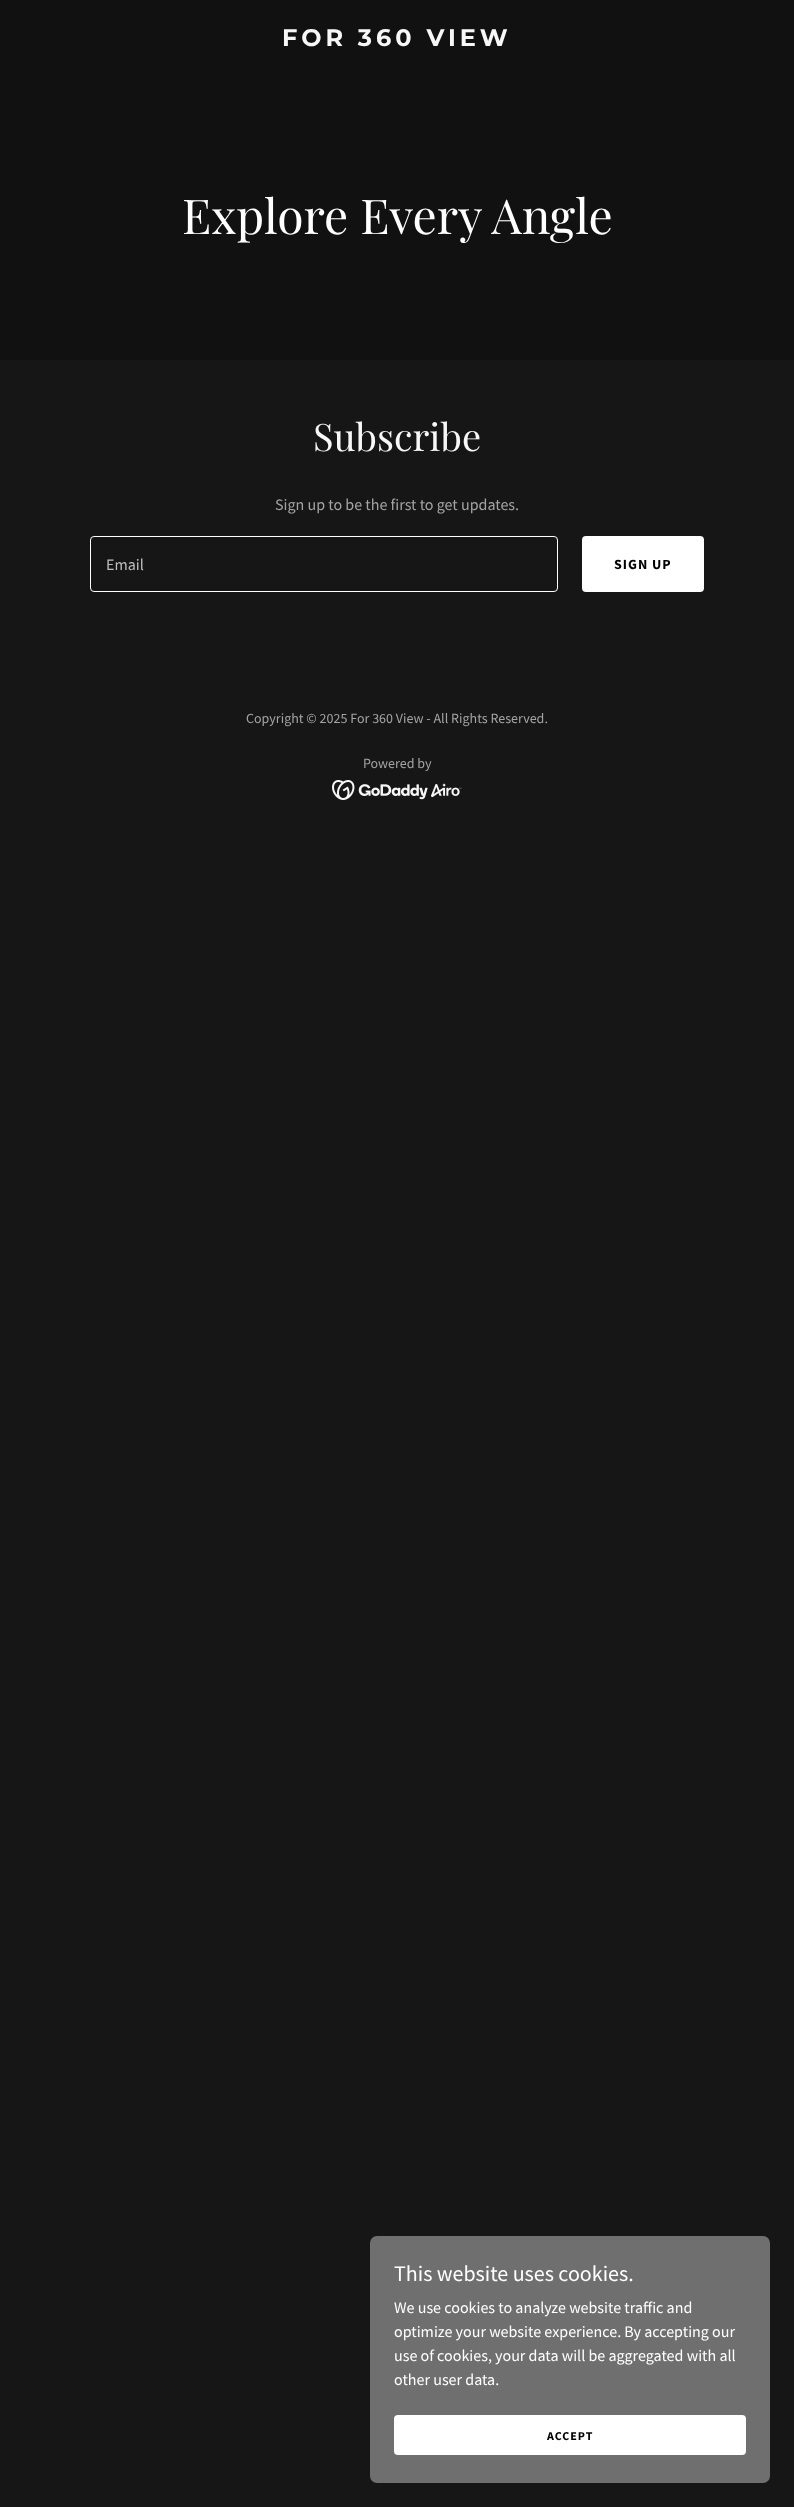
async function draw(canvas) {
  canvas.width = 794
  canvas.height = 2507
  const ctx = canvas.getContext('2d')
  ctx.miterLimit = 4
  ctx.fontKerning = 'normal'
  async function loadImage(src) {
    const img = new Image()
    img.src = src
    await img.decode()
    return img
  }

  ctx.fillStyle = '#161616'
  ctx.fillRect(0, 0, 794, 2507)
  ctx.fillStyle = '#111'
  ctx.fillRect(0, 0, 794, 360)
  ctx.letterSpacing = '4px'
  ctx.font = 'bold 24px Montserrat'
  ctx.fillStyle = '#f7f7f7'
  ctx.fillText('FOR 360 VIEW', 282, 46)
  ctx.letterSpacing = '0px'
  ctx.font = '48px Playfair Display'
  ctx.fillStyle = '#fff'
  ctx.fillText('Explore Every Angle', 182, 234)
  ctx.font = '38px Playfair Display'
  ctx.fillStyle = '#f7f7f7'
  ctx.fillText('Subscribe', 313, 451)
  ctx.font = '16px Source Sans Pro'
  ctx.fillStyle = '#a4a4a4'
  ctx.fillText('Sign up to be the first to get updates.', 275, 510)
  ctx.beginPath()
  ctx.roundRect(90.5, 536.5, 467, 55, 3.5)
  ctx.strokeStyle = '#fff'
  ctx.stroke()
  ctx.fillStyle = '#bfbfbf'
  ctx.fillText('Email', 106, 570)
  ctx.fillStyle = '#fff'
  ctx.beginPath()
  ctx.roundRect(582, 536, 122, 56, 4)
  ctx.fill()
  ctx.letterSpacing = '1px'
  ctx.font = 'bold 14px Source Sans Pro'
  ctx.fillStyle = '#000'
  ctx.fillText('SIGN UP', 614, 569)
  ctx.letterSpacing = '0px'
  ctx.font = '14px Source Sans Pro'
  ctx.fillStyle = '#a4a4a4'
  ctx.fillText('Copyright © 2025 For 360 View - All Rights Reserved.', 246, 723)
  ctx.fillText('Powered by', 363, 768)
  ctx.drawImage(await loadImage('image0.png'), 332, 780, 130, 20)
  ctx.fillStyle = '#6f6f6f'
  ctx.beginPath()
  ctx.roundRect(370, 2236, 400, 247, 7)
  ctx.fill()
  ctx.font = '22px Source Sans Pro'
  ctx.fillStyle = '#fff'
  ctx.fillText('This website uses cookies.', 394, 2281)
  ctx.font = '16px Source Sans Pro'
  ctx.fillText('We use cookies to analyze website traffic and', 394, 2313)
  ctx.fillText('optimize your website experience. By accepting our', 394, 2337)
  ctx.fillText('use of cookies, your data will be aggregated with all', 394, 2361)
  ctx.fillText('other user data.', 394, 2385)
  ctx.beginPath()
  ctx.roundRect(394, 2415, 352, 40, 4)
  ctx.fill()
  ctx.letterSpacing = '1px'
  ctx.font = 'bold 12px Source Sans Pro'
  ctx.fillStyle = '#000'
  ctx.fillText('ACCEPT', 547, 2440)
}

draw(document.querySelector('canvas'))
